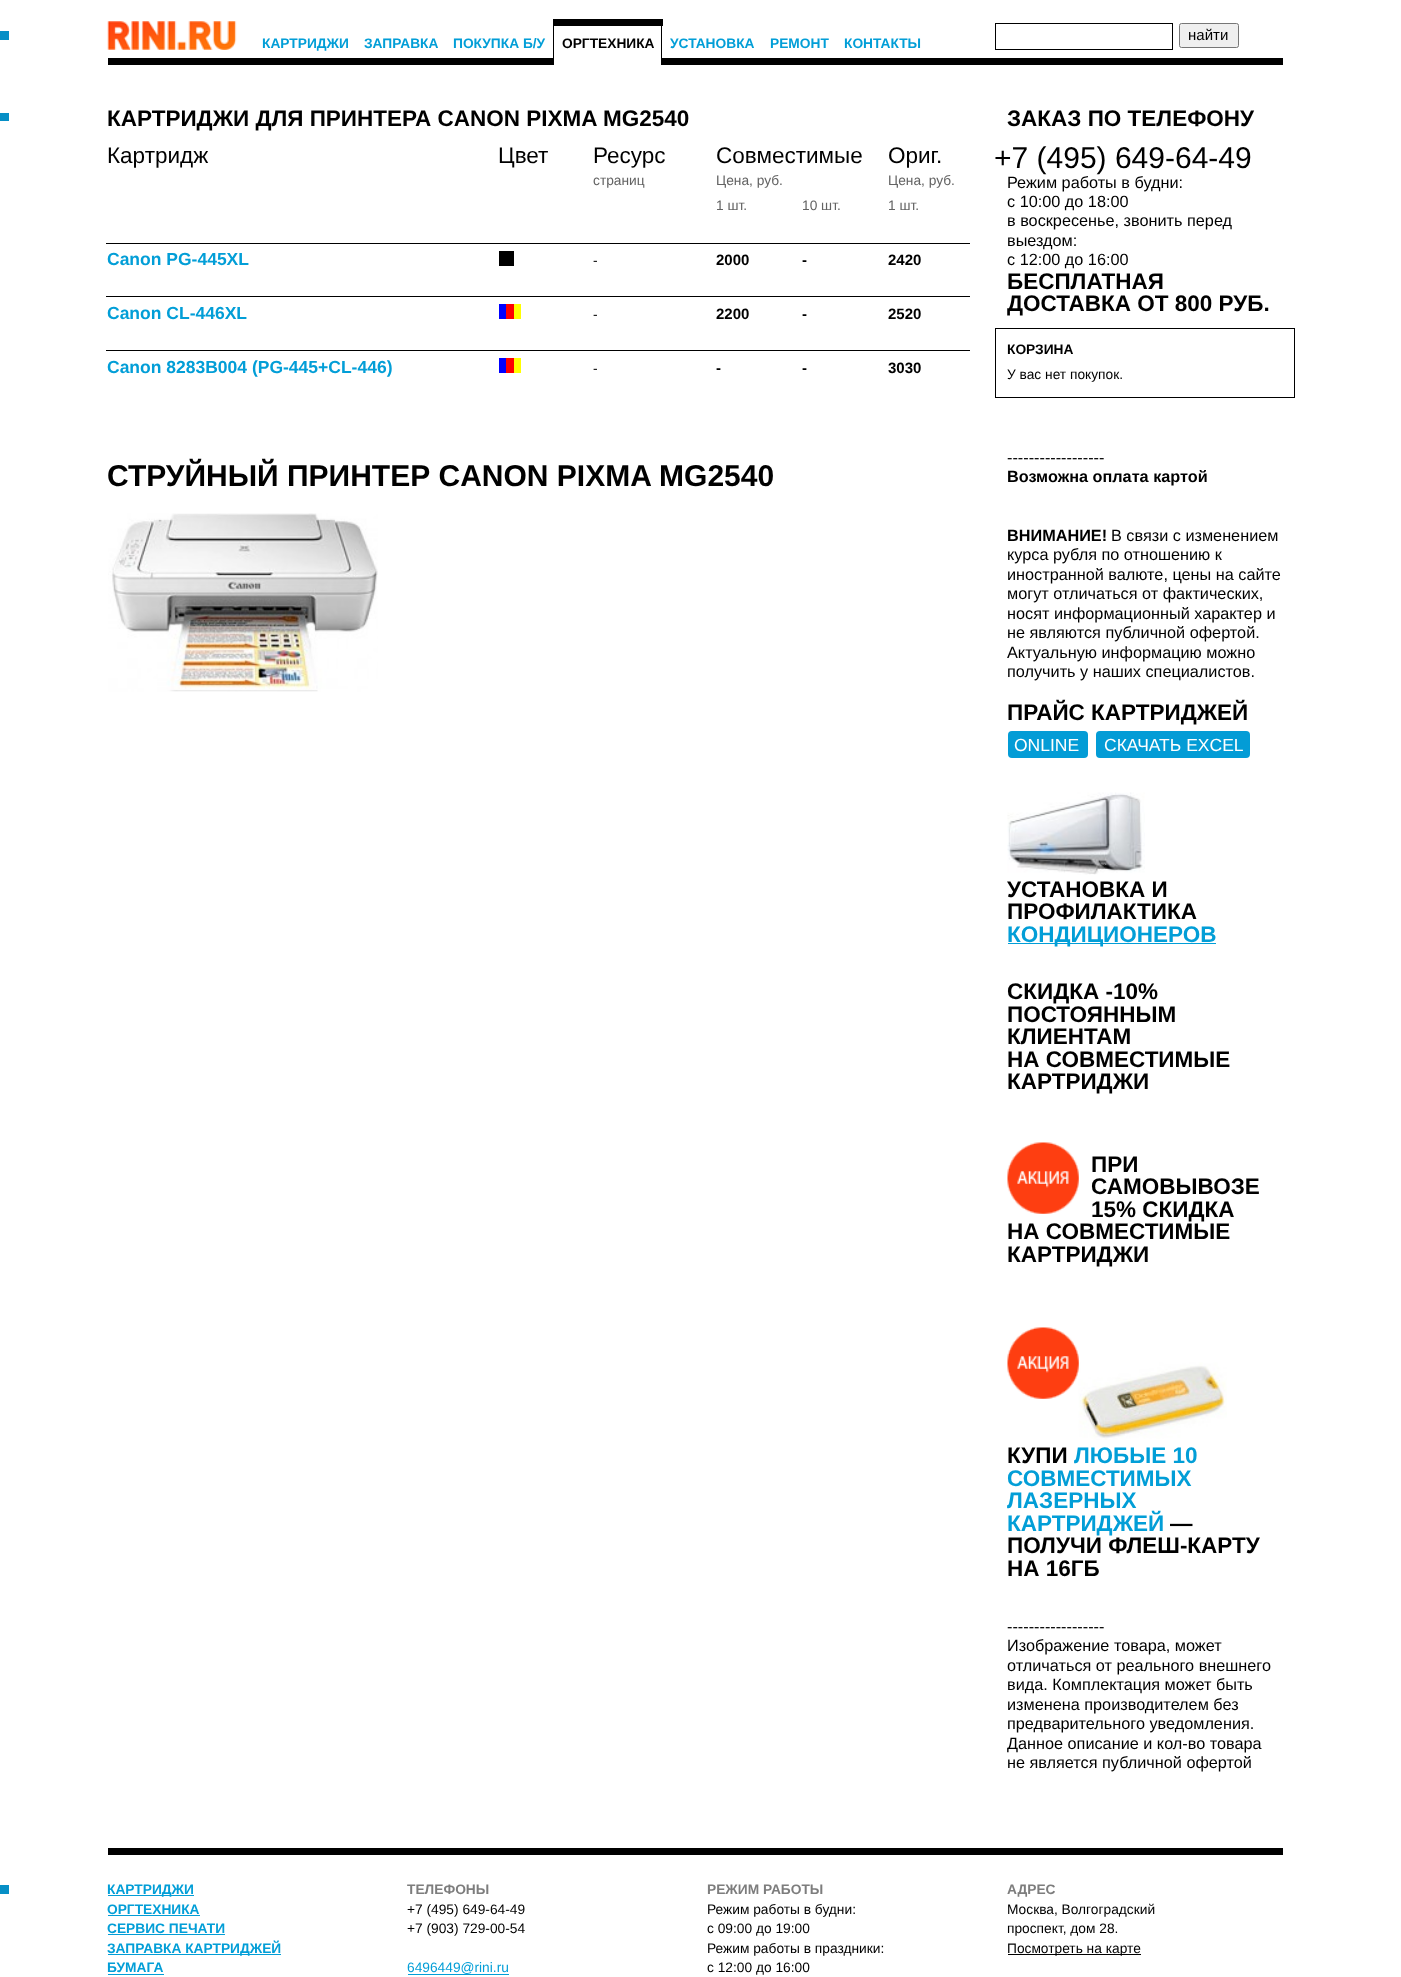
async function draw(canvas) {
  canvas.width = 1401
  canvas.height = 1977
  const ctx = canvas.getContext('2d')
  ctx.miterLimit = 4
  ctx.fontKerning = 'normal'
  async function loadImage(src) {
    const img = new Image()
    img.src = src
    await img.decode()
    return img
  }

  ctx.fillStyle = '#fff'
  ctx.fillRect(0, 0, 1401, 1977)
  ctx.fillStyle = '#068fc6'
  ctx.fillRect(0, 31, 9, 9)
  ctx.strokeStyle = '#000'
  ctx.strokeRect(995.5, 23.5, 177, 26)
  ctx.fillStyle = '#efefef'
  ctx.beginPath()
  ctx.roundRect(1179.5, 23.5, 59, 24, 2)
  ctx.fill()
  ctx.strokeStyle = '#767676'
  ctx.stroke()
  ctx.font = '15px Liberation Sans'
  ctx.fillStyle = '#000'
  ctx.fillText('найти', 1188, 40)
  ctx.drawImage(await loadImage('image0.png'), 107, 21, 130, 29)
  ctx.font = 'bold 13.75px Liberation Sans'
  ctx.fillStyle = '#029ed7'
  ctx.fillText('КАРТРИДЖИ', 262, 48)
  ctx.fillText('ЗАПРАВКА', 364, 48)
  ctx.fillText('ПОКУПКА Б/У', 453, 48)
  ctx.fillStyle = '#000'
  ctx.fillRect(108, 58, 1175, 7)
  ctx.fillStyle = '#fff'
  ctx.fillRect(554, 58, 107, 7)
  ctx.fillStyle = '#000'
  ctx.fillRect(553, 19, 110, 7)
  ctx.fillRect(661, 19, 1, 46)
  ctx.fillRect(553, 19, 1, 46)
  ctx.fillText('ОРГТЕХНИКА', 562, 48)
  ctx.fillStyle = '#029ed7'
  ctx.fillText('УСТАНОВКА', 670, 48)
  ctx.fillText('РЕМОНТ', 770, 48)
  ctx.fillText('КОНТАКТЫ', 844, 48)
  ctx.fillStyle = '#068fc6'
  ctx.fillRect(0, 113, 9, 8)
  ctx.font = 'bold 22.5px Liberation Sans'
  ctx.fillStyle = '#000'
  ctx.fillText('КАРТРИДЖИ ДЛЯ ПРИНТЕРА CANON PIXMA MG2540', 107, 126)
  ctx.font = '22.5px Liberation Sans'
  ctx.fillText('Картридж', 107, 163)
  ctx.fillText('Цвет', 498, 163)
  ctx.fillText('Ресурс', 593, 163)
  ctx.font = '13.75px Liberation Sans'
  ctx.fillStyle = '#636363'
  ctx.fillText('страниц', 593, 185)
  ctx.font = '22.5px Liberation Sans'
  ctx.fillStyle = '#000'
  ctx.fillText('Cовместимые', 716, 163)
  ctx.font = '13.75px Liberation Sans'
  ctx.fillStyle = '#636363'
  ctx.fillText('Цена, руб.', 716, 185)
  ctx.font = '22.5px Liberation Sans'
  ctx.fillStyle = '#000'
  ctx.fillText('Ориг.', 888, 163)
  ctx.font = '13.75px Liberation Sans'
  ctx.fillStyle = '#636363'
  ctx.fillText('Цена, руб.', 888, 185)
  ctx.fillText('1 шт.', 716, 210)
  ctx.fillText('10 шт.', 802, 210)
  ctx.fillText('1 шт.', 888, 210)
  ctx.font = 'bold 17.5px Liberation Sans'
  ctx.fillStyle = '#029ed7'
  ctx.fillText('Canon PG-445XL', 107, 265)
  ctx.fillStyle = '#000'
  ctx.fillRect(499, 251, 15, 15)
  ctx.font = '13.75px Liberation Sans'
  ctx.fillText('-', 593, 265)
  ctx.font = 'bold 15px Liberation Sans'
  ctx.fillText('2000', 716, 265)
  ctx.fillText('-', 802, 265)
  ctx.fillRect(106, 243, 864, 1)
  ctx.fillText('2420', 888, 265)
  ctx.font = 'bold 17.5px Liberation Sans'
  ctx.fillStyle = '#029ed7'
  ctx.fillText('Canon CL-446XL', 107, 319)
  ctx.fillStyle = '#00f'
  ctx.fillRect(499, 304, 7, 15)
  ctx.fillStyle = '#f00'
  ctx.fillRect(506, 304, 8, 15)
  ctx.fillStyle = '#ff0'
  ctx.fillRect(514, 304, 7, 15)
  ctx.font = '13.75px Liberation Sans'
  ctx.fillStyle = '#000'
  ctx.fillText('-', 593, 319)
  ctx.font = 'bold 15px Liberation Sans'
  ctx.fillText('2200', 716, 319)
  ctx.fillText('-', 802, 319)
  ctx.fillRect(106, 296, 864, 1)
  ctx.fillText('2520', 888, 319)
  ctx.font = 'bold 17.5px Liberation Sans'
  ctx.fillStyle = '#029ed7'
  ctx.fillText('Canon 8283B004 (PG-445+CL-446)', 107, 373)
  ctx.fillStyle = '#00f'
  ctx.fillRect(499, 358, 7, 15)
  ctx.fillStyle = '#f00'
  ctx.fillRect(506, 358, 8, 15)
  ctx.fillStyle = '#ff0'
  ctx.fillRect(514, 358, 7, 15)
  ctx.font = '13.75px Liberation Sans'
  ctx.fillStyle = '#000'
  ctx.fillText('-', 593, 373)
  ctx.font = 'bold 15px Liberation Sans'
  ctx.fillText('-', 716, 373)
  ctx.fillText('-', 802, 373)
  ctx.fillRect(106, 350, 864, 1)
  ctx.fillText('3030', 888, 373)
  ctx.font = 'bold 30px Liberation Sans'
  ctx.fillText('СТРУЙНЫЙ ПРИНТЕР CANON PIXMA MG2540', 107, 486)
  ctx.drawImage(await loadImage('image1.png'), 108, 513, 270, 179)
  ctx.font = 'bold 22.5px Liberation Sans'
  ctx.fillText('ЗАКАЗ ПО ТЕЛЕФОНУ', 1007, 126)
  ctx.font = '30px Liberation Sans'
  ctx.fillText('+7 (495) 649-64-49', 994, 168)
  ctx.font = '16.25px Liberation Sans'
  ctx.fillText('Режим работы в будни:', 1007, 188)
  ctx.fillText('с 10:00 до 18:00', 1007, 207)
  ctx.fillText('в воскресенье, звонить перед', 1007, 226)
  ctx.fillText('выездом:', 1007, 246)
  ctx.fillText('с 12:00 до 16:00', 1007, 265)
  ctx.font = 'bold 22.5px Liberation Sans'
  ctx.fillText('БЕСПЛАТНАЯ', 1007, 289)
  ctx.fillText('ДОСТАВКА ОТ 800 РУБ.', 1007, 311)
  ctx.strokeStyle = '#000'
  ctx.strokeRect(995.5, 328.5, 299, 69)
  ctx.font = 'bold 13.75px Liberation Sans'
  ctx.fillText('КОРЗИНА', 1007, 354)
  ctx.font = '13.75px Liberation Sans'
  ctx.fillText('У вас нет покупок.', 1007, 379)
  ctx.font = '16.25px Liberation Sans'
  ctx.fillText('------------------', 1007, 463)
  ctx.font = 'bold 16.25px Liberation Sans'
  ctx.fillText('Возможна оплата картой', 1007, 482)
  ctx.fillText('ВНИМАНИЕ!', 1007, 541)
  ctx.font = '16.25px Liberation Sans'
  ctx.fillText('В связи с изменением', 1111, 541)
  ctx.fillText('курса рубля по отношению к', 1007, 560)
  ctx.fillText('иностранной валюте, цены на сайте', 1007, 580)
  ctx.fillText('могут отличаться от фактических,', 1007, 599)
  ctx.fillText('носят информационный характер и', 1007, 619)
  ctx.fillText('не являются публичной офертой.', 1007, 638)
  ctx.fillText('Актуальную информацию можно', 1007, 658)
  ctx.fillText('получить у наших специалистов.', 1007, 677)
  ctx.font = 'bold 22.5px Liberation Sans'
  ctx.fillText('ПРАЙС КАРТРИДЖЕЙ', 1007, 720)
  ctx.fillStyle = '#039cd6'
  ctx.beginPath()
  ctx.roundRect(1008, 731, 80, 27, 4)
  ctx.fill()
  ctx.font = '17.5px Liberation Sans'
  ctx.fillStyle = '#fff'
  ctx.fillText('ONLINE', 1014, 751)
  ctx.fillStyle = '#039cd6'
  ctx.beginPath()
  ctx.roundRect(1096, 731, 154, 27, 4)
  ctx.fill()
  ctx.fillStyle = '#fff'
  ctx.fillText('СКАЧАТЬ EXCEL', 1104, 751)
  ctx.drawImage(await loadImage('image2.png'), 1007, 792, 138, 83)
  ctx.font = 'bold 22.5px Liberation Sans'
  ctx.fillStyle = '#000'
  ctx.fillText('УСТАНОВКА И', 1007, 897)
  ctx.fillText('ПРОФИЛАКТИКА', 1007, 919)
  ctx.fillStyle = '#029ed7'
  ctx.fillRect(1008, 943, 208, 1)
  ctx.fillText('КОНДИЦИОНЕРОВ', 1007, 942)
  ctx.fillStyle = '#000'
  ctx.fillText('СКИДКА -10%', 1007, 999)
  ctx.fillText('ПОСТОЯННЫМ', 1007, 1022)
  ctx.fillText('КЛИЕНТАМ', 1007, 1044)
  ctx.fillText('НА СОВМЕСТИМЫЕ', 1007, 1067)
  ctx.fillText('КАРТРИДЖИ', 1007, 1089)
  ctx.drawImage(await loadImage('image3.png'), 1007, 1142, 72, 72)
  ctx.fillText('ПРИ', 1091, 1172)
  ctx.fillText('САМОВЫВОЗЕ', 1091, 1194)
  ctx.fillText('15% СКИДКА', 1091, 1217)
  ctx.fillText('НА СОВМЕСТИМЫЕ', 1007, 1239)
  ctx.fillText('КАРТРИДЖИ', 1007, 1262)
  ctx.drawImage(await loadImage('image4.png'), 1007, 1327, 220, 113)
  ctx.fillText('КУПИ', 1007, 1463)
  ctx.fillStyle = '#029ed7'
  ctx.fillText('ЛЮБЫЕ 10', 1074, 1463)
  ctx.fillText('СОВМЕСТИМЫХ', 1007, 1486)
  ctx.fillText('ЛАЗЕРНЫХ', 1007, 1508)
  ctx.fillText('КАРТРИДЖЕЙ', 1007, 1531)
  ctx.fillStyle = '#000'
  ctx.fillText('—', 1170, 1531)
  ctx.fillText('ПОЛУЧИ ФЛЕШ-КАРТУ', 1007, 1553)
  ctx.fillText('НА 16ГБ', 1007, 1576)
  ctx.font = '16.25px Liberation Sans'
  ctx.fillText('------------------', 1007, 1632)
  ctx.fillText('Изображение товара, может', 1007, 1651)
  ctx.fillText('отличаться от реального внешнего', 1007, 1671)
  ctx.fillText('вида. Комплектация может быть', 1007, 1690)
  ctx.fillText('изменена производителем без', 1007, 1710)
  ctx.fillText('предварительного уведомления.', 1007, 1729)
  ctx.fillText('Данное описание и кол-во товара', 1007, 1749)
  ctx.fillText('не является публичной офертой', 1007, 1768)
  ctx.fillRect(108, 1848, 1175, 7)
  ctx.fillStyle = '#068fc6'
  ctx.fillRect(0, 1885, 9, 9)
  ctx.fillStyle = '#029ed7'
  ctx.fillRect(108, 1895, 86, 1)
  ctx.font = 'bold 13.75px Liberation Sans'
  ctx.fillText('КАРТРИДЖИ', 107, 1894)
  ctx.fillText('ОРГТЕХНИКА', 107, 1914)
  ctx.fillRect(108, 1915, 92, 1)
  ctx.fillText('СЕРВИС ПЕЧАТИ', 107, 1933)
  ctx.fillRect(108, 1934, 117, 1)
  ctx.fillRect(108, 1954, 173, 1)
  ctx.fillText('ЗАПРАВКА КАРТРИДЖЕЙ', 107, 1953)
  ctx.fillText('БУМАГА', 107, 1972)
  ctx.fillRect(108, 1974, 56, 1)
  ctx.fillStyle = '#7d7d7d'
  ctx.fillText('ТЕЛЕФОНЫ', 407, 1894)
  ctx.font = '13.75px Liberation Sans'
  ctx.fillStyle = '#000'
  ctx.fillText('+7 (495) 649-64-49', 407, 1914)
  ctx.fillText('+7 (903) 729-00-54', 407, 1933)
  ctx.fillStyle = '#029ed7'
  ctx.fillText('6496449@rini.ru', 407, 1972)
  ctx.fillRect(408, 1974, 101, 1)
  ctx.font = 'bold 13.75px Liberation Sans'
  ctx.fillStyle = '#7d7d7d'
  ctx.fillText('РЕЖИМ РАБОТЫ', 707, 1894)
  ctx.font = '13.75px Liberation Sans'
  ctx.fillStyle = '#000'
  ctx.fillText('Режим работы в будни:', 707, 1914)
  ctx.fillText('с 09:00 до 19:00', 707, 1933)
  ctx.fillText('Режим работы в праздники:', 707, 1953)
  ctx.fillText('с 12:00 до 16:00', 707, 1972)
  ctx.font = 'bold 13.75px Liberation Sans'
  ctx.fillStyle = '#7d7d7d'
  ctx.fillText('АДРЕС', 1007, 1894)
  ctx.font = '13.75px Liberation Sans'
  ctx.fillStyle = '#000'
  ctx.fillText('Москва, Волгоградский', 1007, 1914)
  ctx.fillText('проспект, дом 28.', 1007, 1933)
  ctx.fillRect(1008, 1954, 133, 1)
  ctx.fillText('Посмотреть на карте', 1007, 1953)
}

draw(document.querySelector('canvas'))
